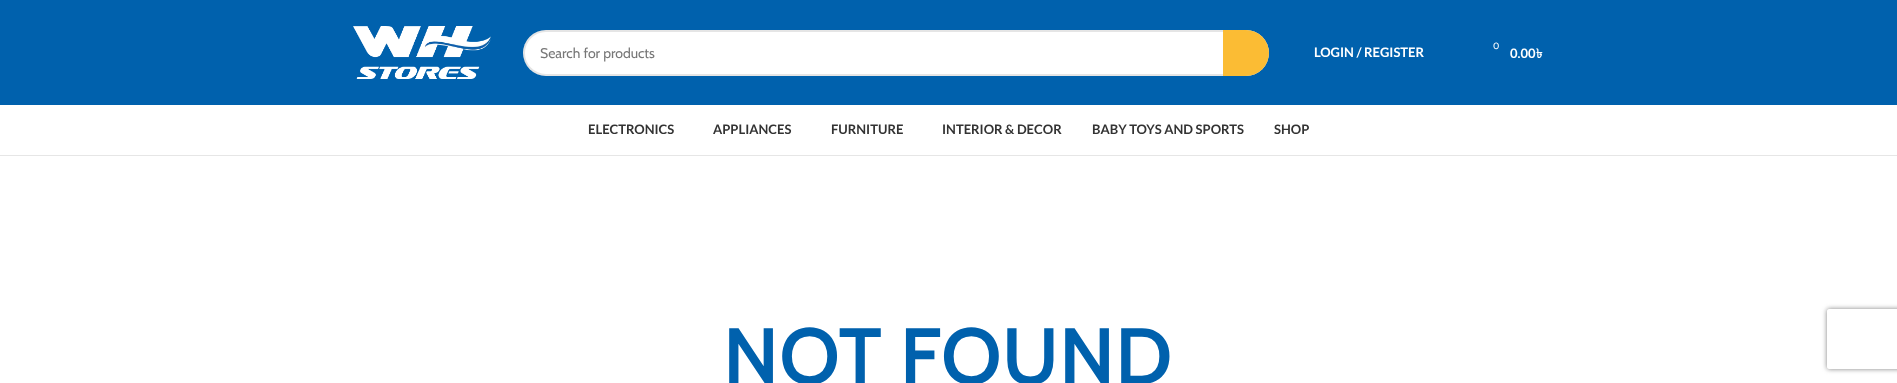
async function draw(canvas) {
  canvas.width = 1897
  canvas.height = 383
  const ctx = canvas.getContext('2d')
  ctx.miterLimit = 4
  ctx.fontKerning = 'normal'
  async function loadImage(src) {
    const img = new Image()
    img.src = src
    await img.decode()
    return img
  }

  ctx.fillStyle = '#fff'
  ctx.fillRect(0, 0, 1897, 383)
  ctx.fillStyle = '#0061ad'
  ctx.fillRect(0, 0, 1897, 105)
  ctx.drawImage(await loadImage('image0.png'), 353, 26, 138, 53)
  ctx.fillStyle = '#fff'
  ctx.beginPath()
  ctx.roundRect(523, 30, 746, 46, 23)
  ctx.fill()
  ctx.beginPath()
  ctx.roundRect(524, 31, 744, 44, 22)
  ctx.strokeStyle = '#0000001a'
  ctx.lineWidth = 2
  ctx.stroke()
  ctx.font = '14px Cabin'
  ctx.fillStyle = '#777'
  ctx.fillText('Search for products', 540, 58)
  ctx.fillStyle = '#fbbc34'
  ctx.beginPath()
  ctx.roundRect(1223, 30, 46, 46, [0, 23, 23, 0])
  ctx.fill()
  ctx.font = 'bold 13px Lato'
  ctx.fillStyle = '#fff'
  ctx.fillText('LOGIN / REGISTER', 1314, 57)
  ctx.font = '9px Cabin'
  ctx.fillText('0', 1493, 49)
  ctx.font = 'bold 13px Lato'
  ctx.fillText('0.00', 1510, 58)
  ctx.font = 'bold 13px Lohit Bengali'
  ctx.fillText('৳', 1536, 58)
  ctx.fillStyle = '#e6e6e6'
  ctx.fillRect(0, 155, 1897, 1)
  ctx.font = 'bold 13px Lato'
  ctx.fillStyle = '#333'
  ctx.fillText('ELECTRONICS', 588, 134)
  ctx.fillText('APPLIANCES', 713, 134)
  ctx.fillText('FURNITURE', 831, 134)
  ctx.fillText('INTERIOR & DECOR', 942, 134)
  ctx.fillText('BABY TOYS AND SPORTS', 1092, 134)
  ctx.fillText('SHOP', 1274, 134)
  ctx.font = '600 79.5px Cabin'
  ctx.fillStyle = '#0061ad'
  ctx.fillText('NOT FOUND', 723, 384)
  ctx.save()
  ctx.beginPath()
  ctx.moveTo(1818, 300)
  ctx.lineTo(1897, 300)
  ctx.lineTo(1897, 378)
  ctx.lineTo(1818, 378)
  ctx.closePath()
  ctx.moveTo(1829, 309)
  ctx.lineTo(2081, 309)
  ctx.bezierCurveTo(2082, 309, 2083, 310, 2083, 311)
  ctx.lineTo(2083, 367)
  ctx.bezierCurveTo(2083, 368, 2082, 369, 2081, 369)
  ctx.lineTo(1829, 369)
  ctx.bezierCurveTo(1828, 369, 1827, 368, 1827, 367)
  ctx.lineTo(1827, 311)
  ctx.bezierCurveTo(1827, 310, 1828, 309, 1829, 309)
  ctx.closePath()
  ctx.clip('evenodd')
  ctx.fillStyle = '#808080'
  ctx.filter = 'blur(2.5px)'
  ctx.beginPath()
  ctx.roundRect(1827, 309, 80, 60, 2)
  ctx.fill()
  ctx.filter = 'none'
  ctx.restore()
}

draw(document.querySelector('canvas'))
